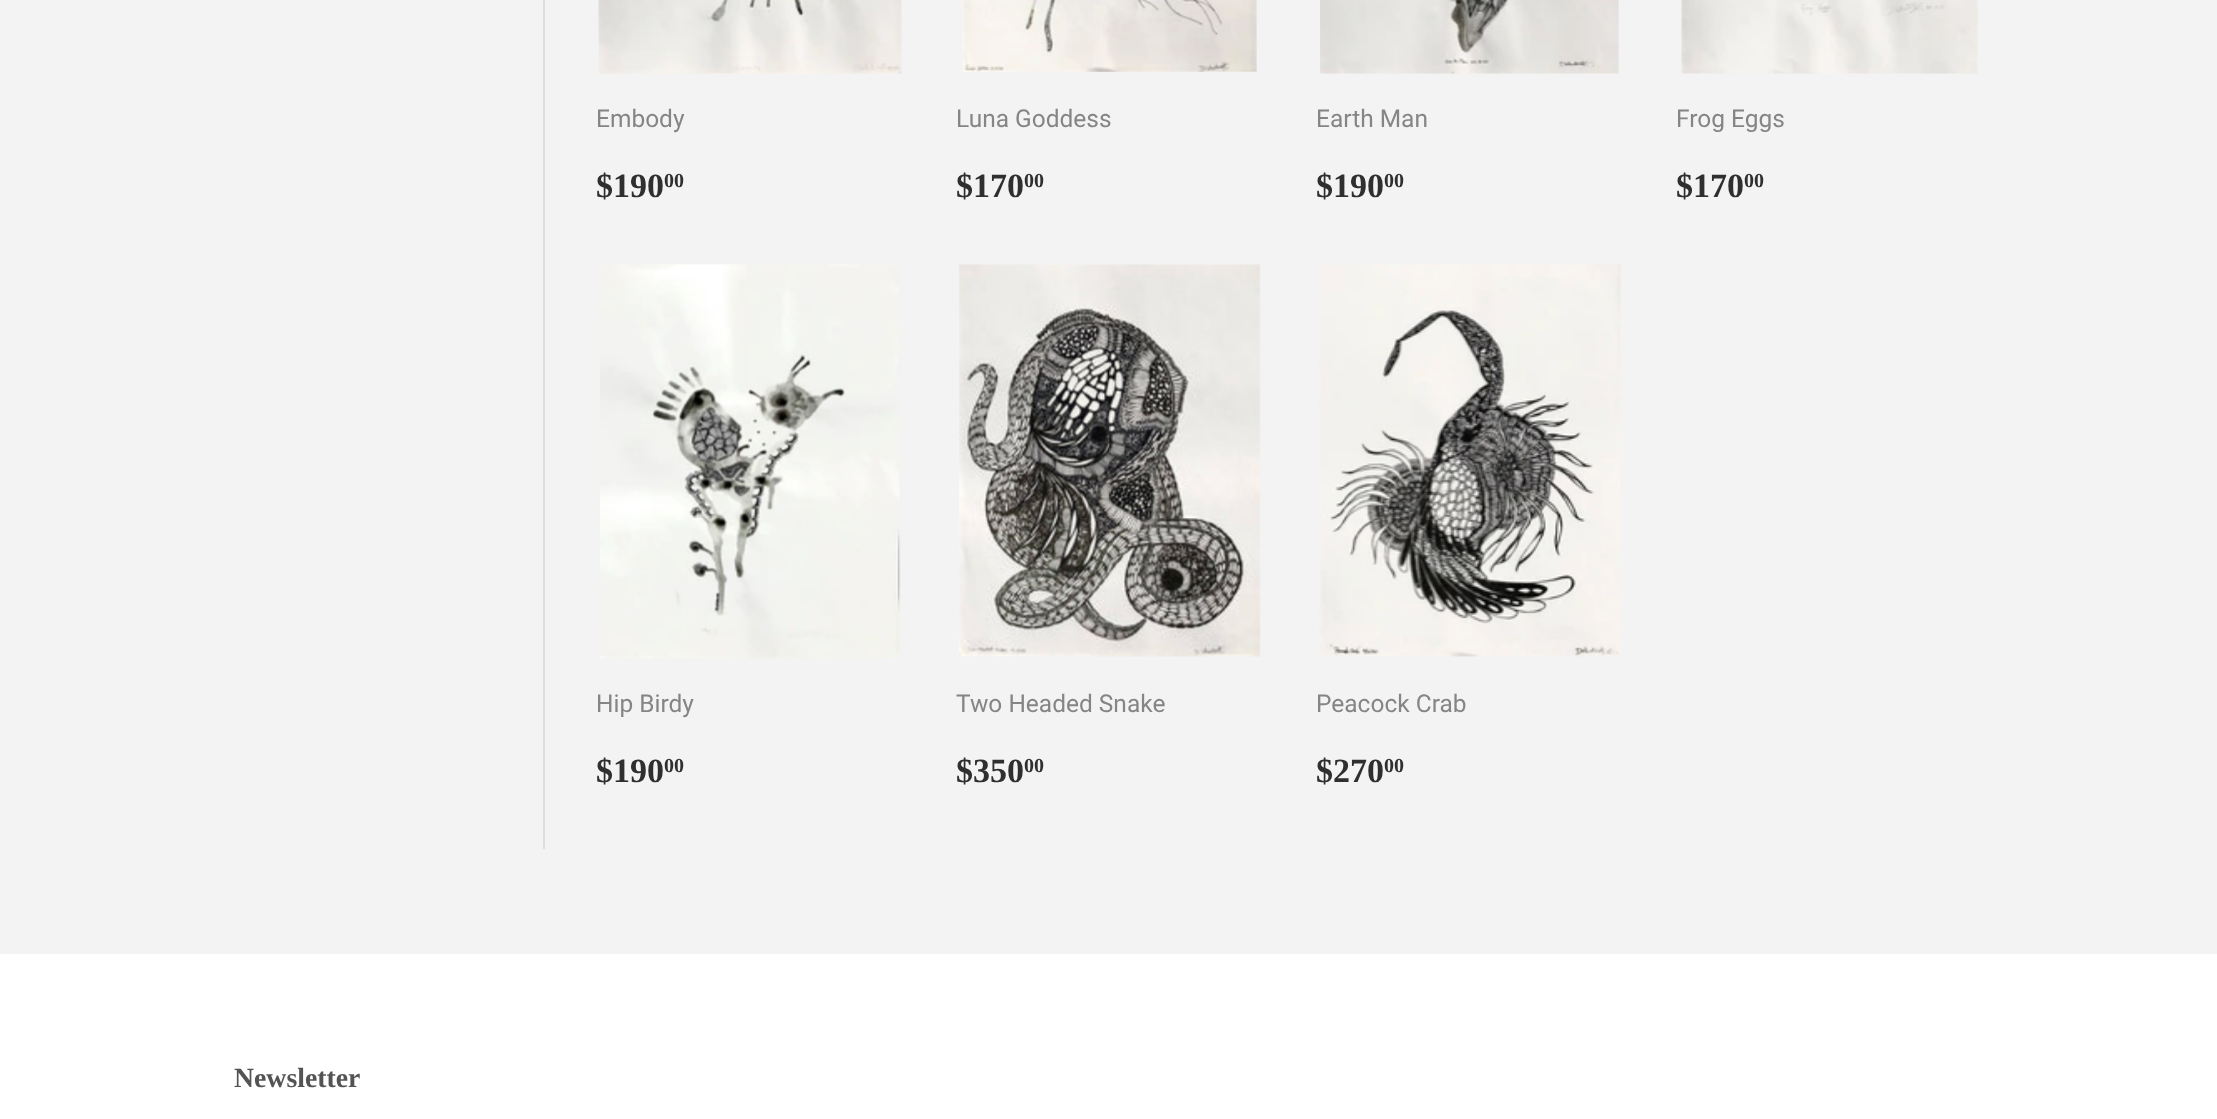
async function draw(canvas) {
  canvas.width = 2217
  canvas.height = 1119
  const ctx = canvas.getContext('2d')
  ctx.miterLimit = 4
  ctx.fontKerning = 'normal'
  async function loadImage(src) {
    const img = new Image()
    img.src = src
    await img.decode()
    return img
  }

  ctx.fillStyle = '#f3f3f3'
  ctx.fillRect(0, 0, 2217, 1119)
  ctx.fillStyle = '#dedede'
  ctx.fillRect(543, 0, 2, 849)
  ctx.drawImage(await loadImage('image0.png'), 598, 0, 304, 74)
  ctx.font = '24.5px Roboto'
  ctx.fillStyle = '#858585'
  ctx.fillText('Embody', 596, 127)
  ctx.font = 'bold 34px Liberation Serif'
  ctx.fillStyle = '#2f2f2f'
  ctx.fillText('$190', 596, 197)
  ctx.font = 'bold 20px Liberation Serif'
  ctx.fillText('00', 664, 187)
  ctx.drawImage(await loadImage('image1.png'), 962, 0, 295, 72)
  ctx.font = '24.5px Roboto'
  ctx.fillStyle = '#858585'
  ctx.fillText('Luna Goddess', 956, 127)
  ctx.font = 'bold 34px Liberation Serif'
  ctx.fillStyle = '#2f2f2f'
  ctx.fillText('$170', 956, 197)
  ctx.font = 'bold 20px Liberation Serif'
  ctx.fillText('00', 1024, 187)
  ctx.drawImage(await loadImage('image2.png'), 1320, 0, 299, 74)
  ctx.font = '24.5px Roboto'
  ctx.fillStyle = '#858585'
  ctx.fillText('Earth Man', 1316, 127)
  ctx.font = 'bold 34px Liberation Serif'
  ctx.fillStyle = '#2f2f2f'
  ctx.fillText('$190', 1316, 197)
  ctx.font = 'bold 20px Liberation Serif'
  ctx.fillText('00', 1384, 187)
  ctx.drawImage(await loadImage('image3.png'), 1681, 0, 297, 74)
  ctx.font = '24.5px Roboto'
  ctx.fillStyle = '#858585'
  ctx.fillText('Frog Eggs', 1676, 127)
  ctx.font = 'bold 34px Liberation Serif'
  ctx.fillStyle = '#2f2f2f'
  ctx.fillText('$170', 1676, 197)
  ctx.font = 'bold 20px Liberation Serif'
  ctx.fillText('00', 1744, 187)
  ctx.drawImage(await loadImage('image4.png'), 600, 264, 301, 395)
  ctx.font = '24.5px Roboto'
  ctx.fillStyle = '#858585'
  ctx.fillText('Hip Birdy', 596, 712)
  ctx.font = 'bold 34px Liberation Serif'
  ctx.fillStyle = '#2f2f2f'
  ctx.fillText('$190', 596, 782)
  ctx.font = 'bold 20px Liberation Serif'
  ctx.fillText('00', 664, 772)
  ctx.drawImage(await loadImage('image5.png'), 959, 264, 302, 393)
  ctx.font = '24.5px Roboto'
  ctx.fillStyle = '#858585'
  ctx.fillText('Two Headed Snake', 956, 712)
  ctx.font = 'bold 34px Liberation Serif'
  ctx.fillStyle = '#2f2f2f'
  ctx.fillText('$350', 956, 782)
  ctx.font = 'bold 20px Liberation Serif'
  ctx.fillText('00', 1024, 772)
  ctx.drawImage(await loadImage('image6.png'), 1319, 264, 302, 393)
  ctx.font = '24.5px Roboto'
  ctx.fillStyle = '#858585'
  ctx.fillText('Peacock Crab', 1316, 712)
  ctx.font = 'bold 34px Liberation Serif'
  ctx.fillStyle = '#2f2f2f'
  ctx.fillText('$270', 1316, 782)
  ctx.font = 'bold 20px Liberation Serif'
  ctx.fillText('00', 1384, 772)
  ctx.fillStyle = '#fff'
  ctx.fillRect(0, 954, 2217, 165)
  ctx.font = 'bold 27.75px Liberation Serif'
  ctx.fillStyle = '#545454'
  ctx.fillText('Newsletter', 234, 1087)
}

draw(document.querySelector('canvas'))
